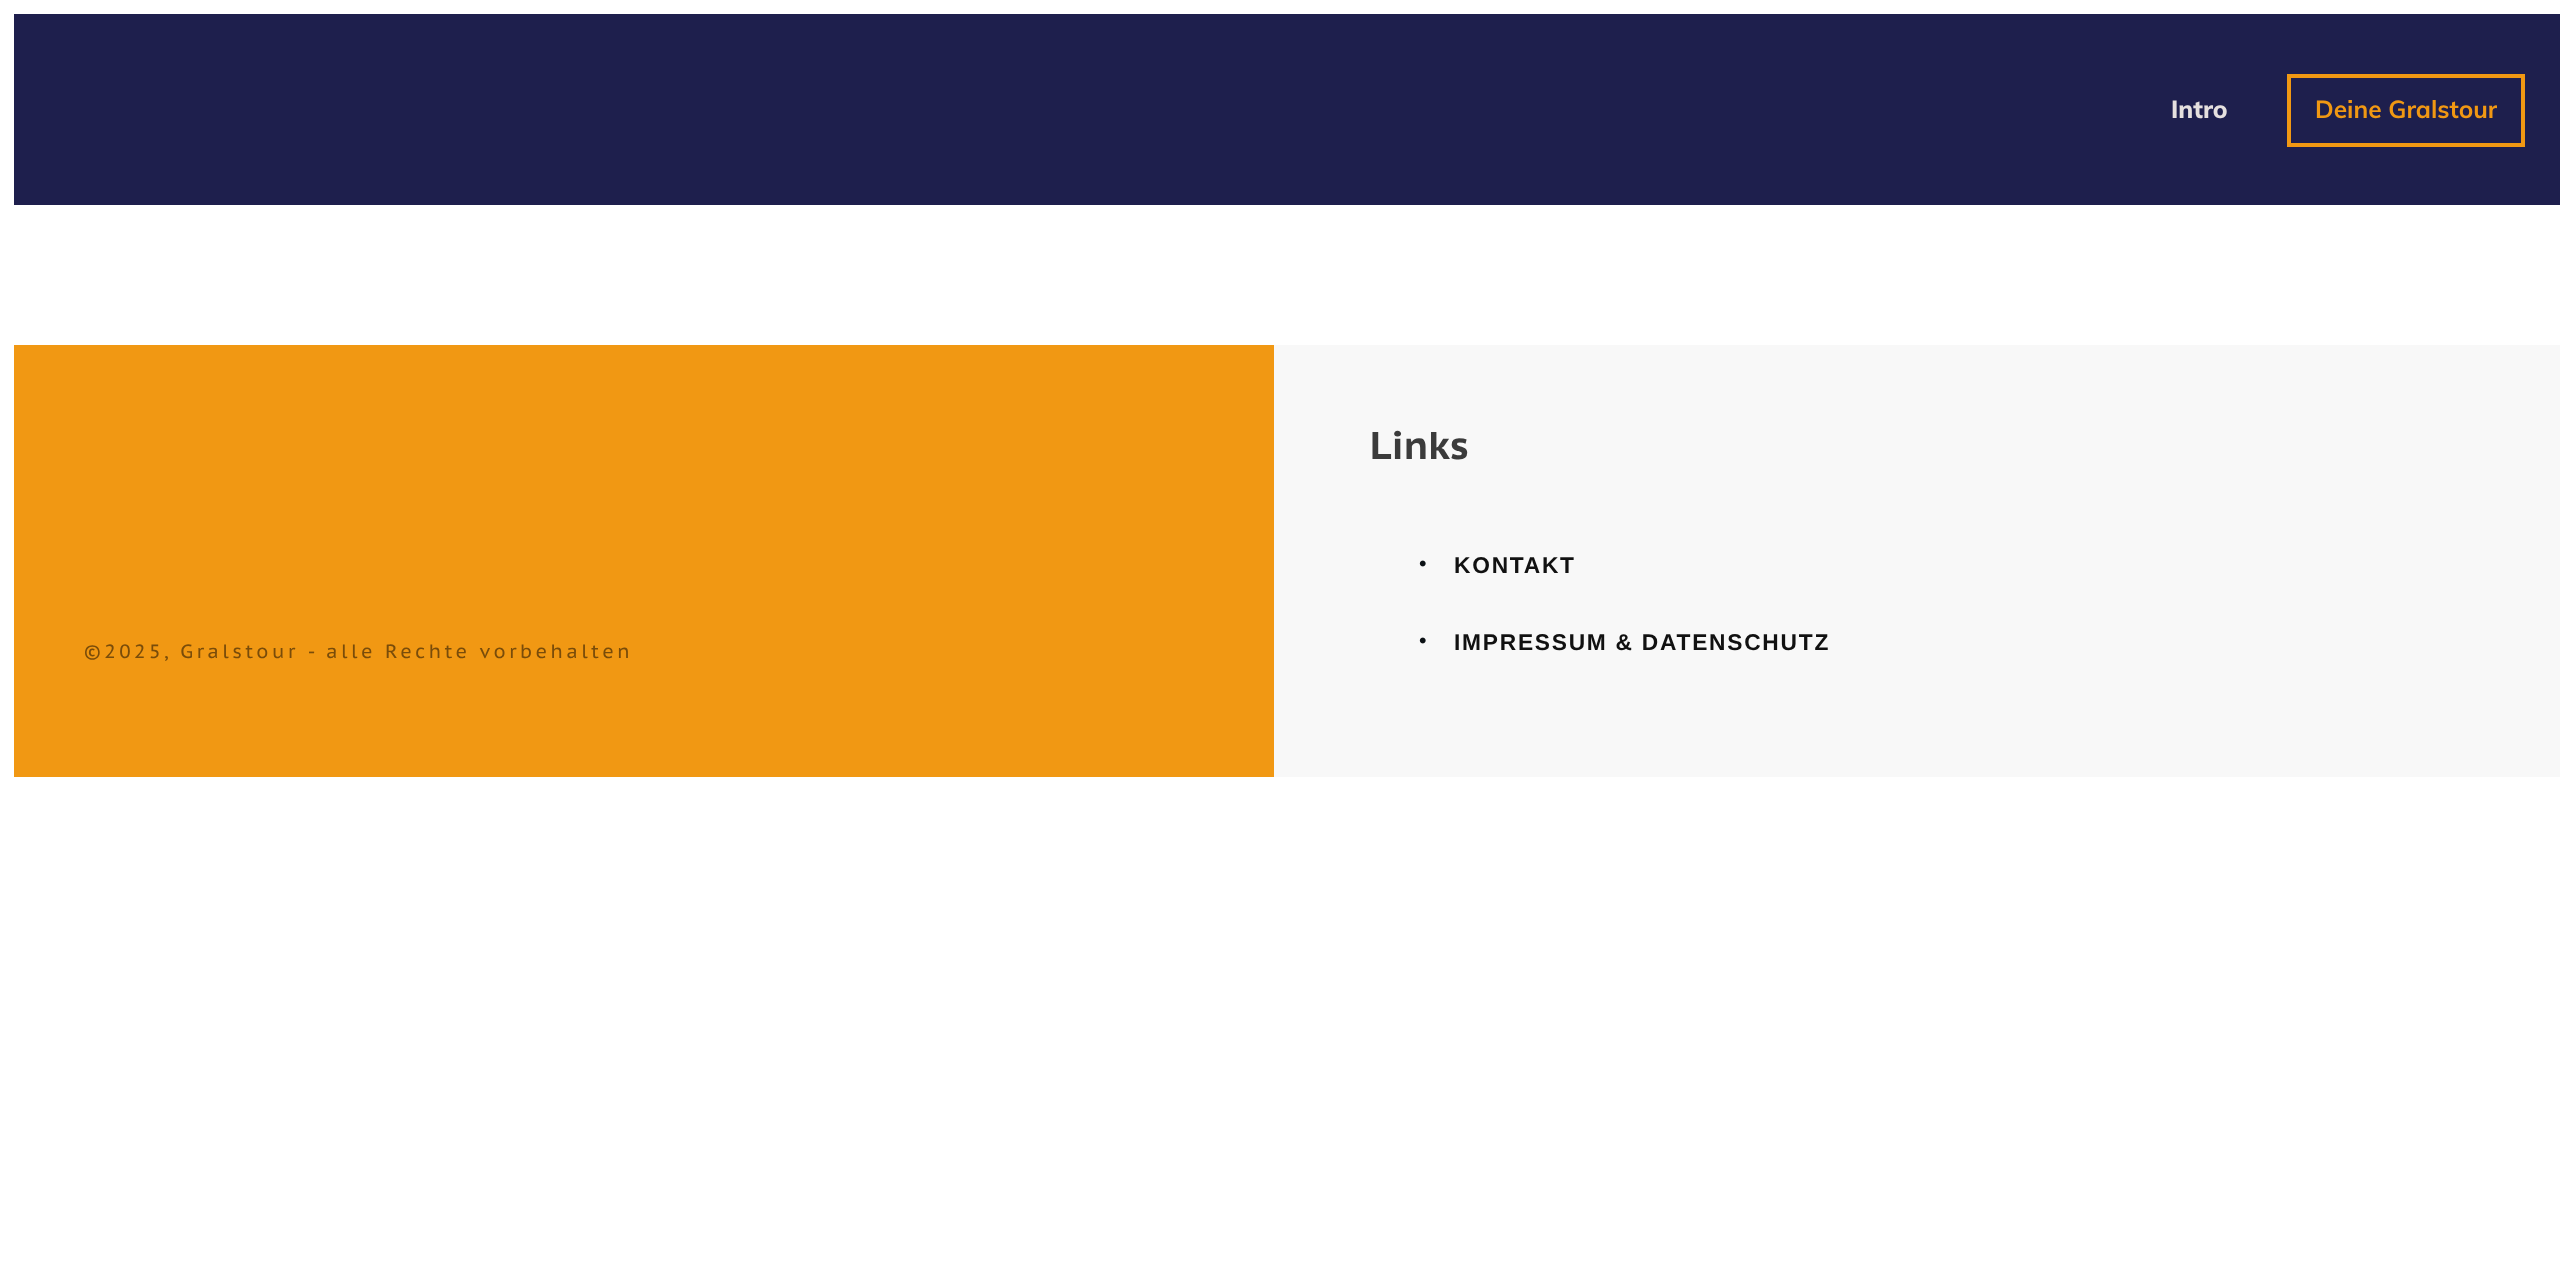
async function draw(canvas) {
  canvas.width = 2574
  canvas.height = 1274
  const ctx = canvas.getContext('2d')
  ctx.miterLimit = 4
  ctx.fontKerning = 'normal'
  async function loadImage(src) {
    const img = new Image()
    img.src = src
    await img.decode()
    return img
  }

  ctx.fillStyle = '#fff'
  ctx.fillRect(0, 0, 2574, 1274)
  ctx.fillStyle = '#1e1f4d'
  ctx.fillRect(14, 14, 2546, 191)
  ctx.font = '800 24.5px Muli'
  ctx.fillStyle = '#e5e0df'
  ctx.fillText('Intro', 2171, 118)
  ctx.strokeStyle = '#f19813'
  ctx.lineWidth = 4
  ctx.strokeRect(2289, 76, 234, 69)
  ctx.save()
  ctx.beginPath()
  ctx.rect(2315, 86, 182, 49)
  ctx.clip()
  ctx.font = 'bold 24.5px Muli'
  ctx.fillStyle = '#f19813'
  ctx.fillText('Deine Gralstour', 2315, 118)
  ctx.restore()
  ctx.fillStyle = '#f19813'
  ctx.fillRect(14, 345, 1260, 432)
  ctx.letterSpacing = '3.5px'
  ctx.font = '19.25px PT Sans Caption'
  ctx.fillStyle = '#794c0a'
  ctx.fillText('©2025, Gralstour - alle Rechte vorbehalten', 84, 658)
  ctx.fillStyle = '#f8f8f8'
  ctx.fillRect(1274, 345, 1286, 432)
  ctx.letterSpacing = '0px'
  ctx.font = 'bold 38.5px PT Sans Caption'
  ctx.fillStyle = '#3b3b3b'
  ctx.fillText('Links', 1370, 459)
  ctx.drawImage(await loadImage('image0.png'), 1419, 560, 7, 7)
  ctx.letterSpacing = '1.75px'
  ctx.font = 'bold 22.75px Liberation Sans'
  ctx.fillStyle = '#111'
  ctx.fillText('KONTAKT', 1454, 573)
  ctx.drawImage(await loadImage('image0.png'), 1419, 637, 7, 7)
  ctx.fillText('IMPRESSUM & DATENSCHUTZ', 1454, 650)
}

draw(document.querySelector('canvas'))
